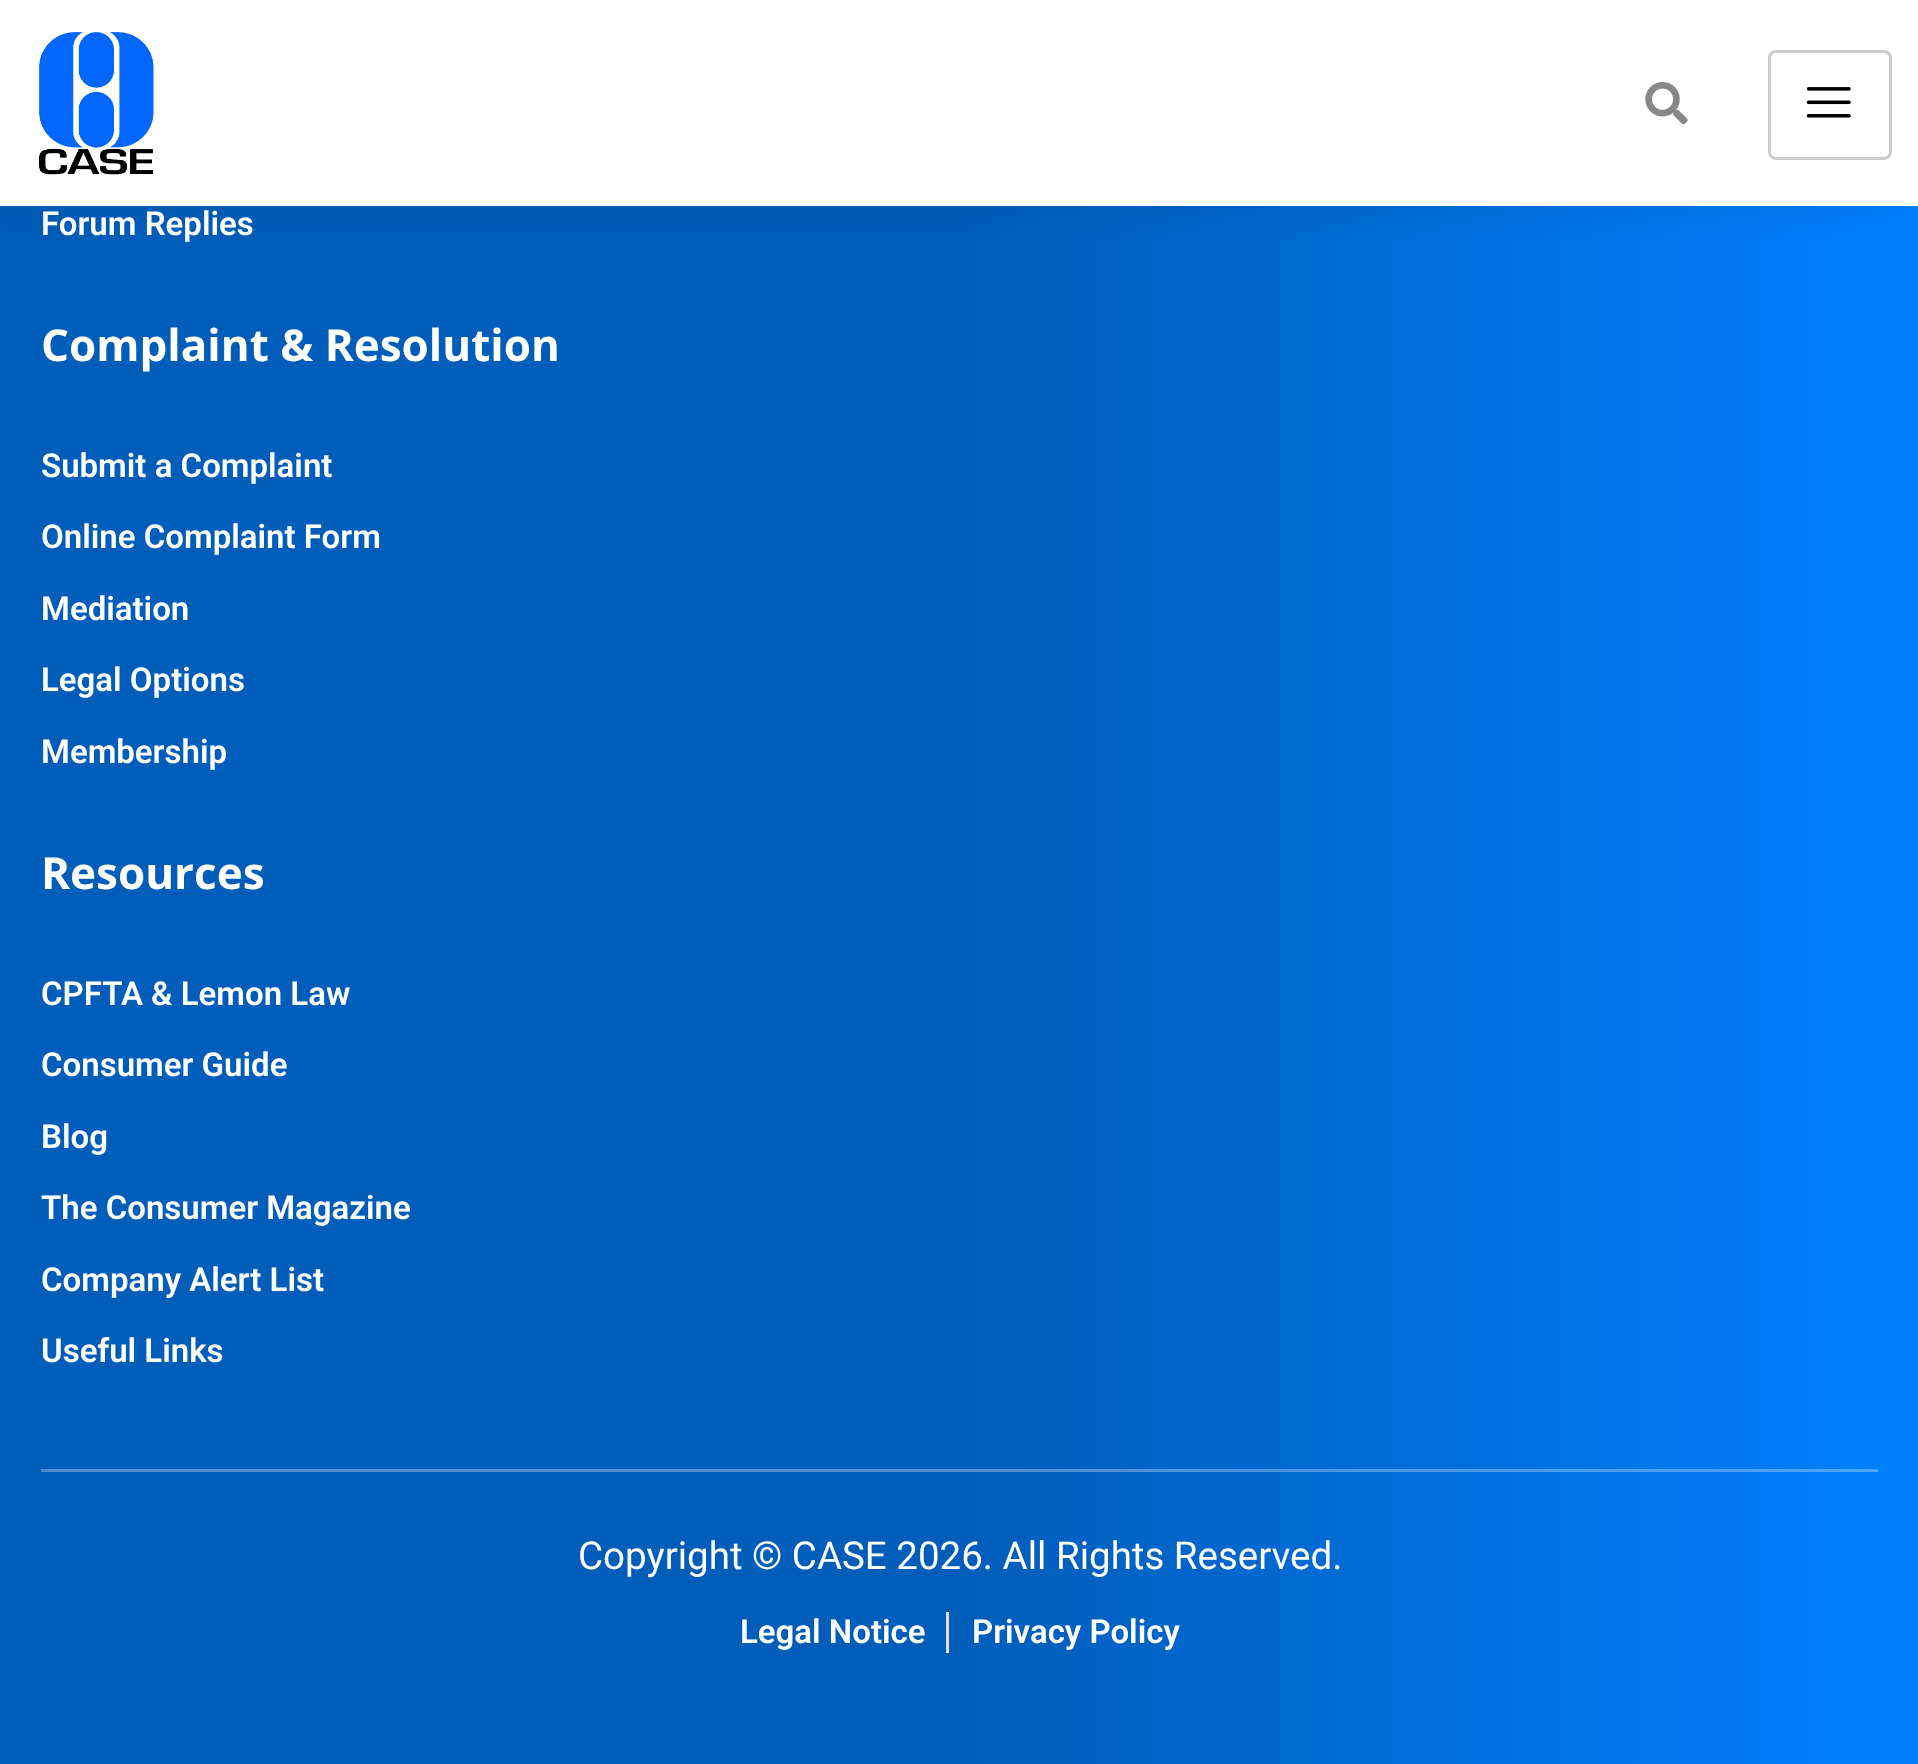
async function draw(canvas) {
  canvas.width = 1918
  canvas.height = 1764
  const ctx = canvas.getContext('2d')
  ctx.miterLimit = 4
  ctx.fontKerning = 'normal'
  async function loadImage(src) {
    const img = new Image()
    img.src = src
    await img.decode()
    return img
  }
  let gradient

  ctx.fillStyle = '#fff'
  ctx.fillRect(0, 0, 1918, 1764)
  gradient = ctx.createLinearGradient(0, 177, 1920, 177)
  gradient.addColorStop(0.5, '#005dba')
  gradient.addColorStop(1, '#0080ff')
  ctx.fillStyle = gradient
  ctx.fillRect(0, 206, 1918, 1558)
  ctx.fillStyle = '#0000000d'
  ctx.filter = 'blur(14px)'
  ctx.beginPath()
  ctx.rect(0, 11, 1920, 206)
  ctx.fill()
  ctx.filter = 'none'
  ctx.fillStyle = '#fff'
  ctx.fillRect(0, 0, 1918, 206)
  ctx.drawImage(await loadImage('image0.png'), 39, 32, 115, 143)
  ctx.drawImage(await loadImage('image1.png'), 1645, 82, 43, 43)
  ctx.beginPath()
  ctx.roundRect(1769.5, 51.5, 121, 107, 6.5)
  ctx.strokeStyle = '#ccc'
  ctx.lineWidth = 3
  ctx.stroke()
  ctx.drawImage(await loadImage('image2.png'), 1806, 87, 45, 31)
  gradient = ctx.createLinearGradient(0, 177, 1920, 177)
  gradient.addColorStop(0.5, '#4d8ecf')
  gradient.addColorStop(1, '#4da6ff')
  ctx.fillStyle = gradient
  ctx.fillRect(41, 1469, 1837, 3)
  ctx.font = '600 33px Roboto'
  ctx.fillStyle = '#fff'
  ctx.fillText('Forum Replies', 41, 235)
  ctx.font = 'bold 44px Open Sans'
  ctx.fillText('Complaint & Resolution', 41, 361)
  ctx.font = '600 33px Roboto'
  ctx.fillText('Submit a Complaint', 41, 477)
  ctx.fillText('Online Complaint Form', 41, 548)
  ctx.fillText('Mediation', 41, 620)
  ctx.fillText('Legal Options', 41, 691)
  ctx.fillText('Membership', 41, 763)
  ctx.font = 'bold 44px Open Sans'
  ctx.fillText('Resources', 41, 889)
  ctx.font = '600 33px Roboto'
  ctx.fillText('CPFTA & Lemon Law', 41, 1005)
  ctx.fillText('Consumer Guide', 41, 1076)
  ctx.fillText('Blog', 41, 1148)
  ctx.fillText('The Consumer Magazine', 41, 1219)
  ctx.fillText('Company Alert List', 41, 1291)
  ctx.fillText('Useful Links', 41, 1362)
  ctx.font = '38.5px Roboto'
  ctx.fillText('Copyright © CASE 2026. All Rights Reserved.', 578, 1569)
  ctx.font = '600 33px Roboto'
  ctx.fillText('Legal Notice', 740, 1643)
  ctx.fillStyle = '#ddd'
  ctx.fillRect(946, 1612, 3, 41)
  ctx.fillStyle = '#fff'
  ctx.fillText('Privacy Policy', 972, 1643)
}

draw(document.querySelector('canvas'))
